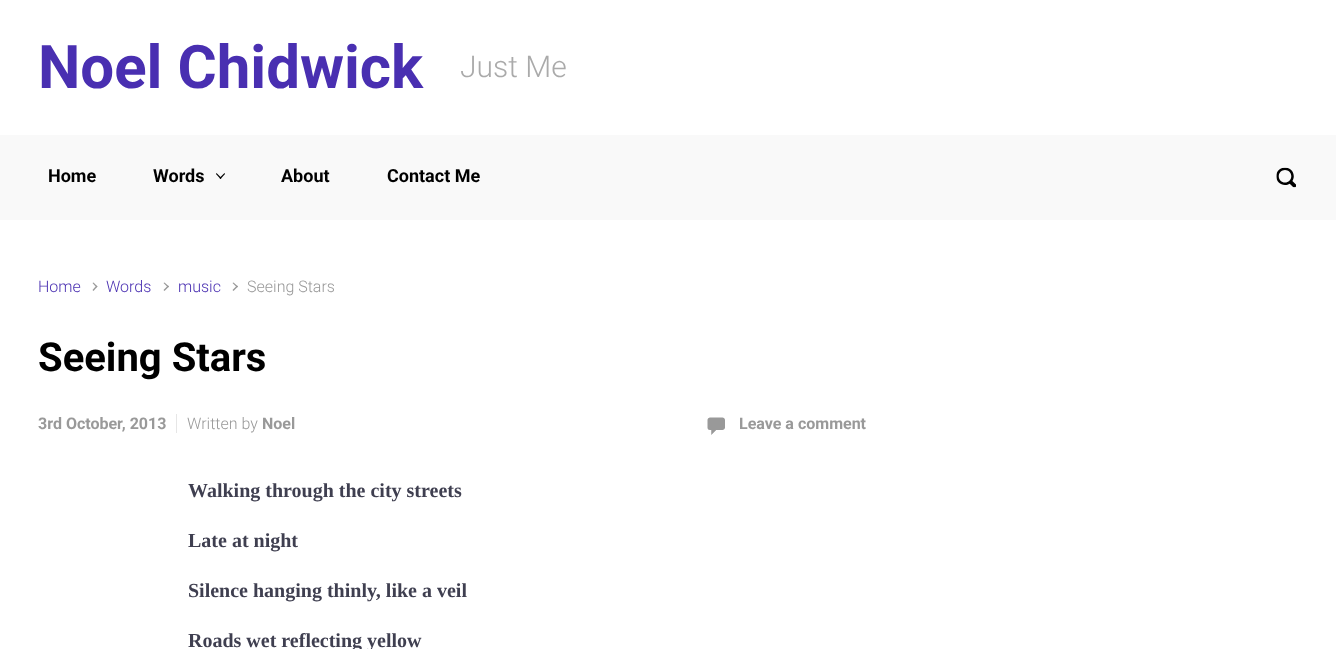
async function draw(canvas) {
  canvas.width = 1336
  canvas.height = 649
  const ctx = canvas.getContext('2d')
  ctx.miterLimit = 4
  ctx.fontKerning = 'normal'
  async function loadImage(src) {
    const img = new Image()
    img.src = src
    await img.decode()
    return img
  }

  ctx.fillStyle = '#f9f9f9'
  ctx.fillRect(0, 0, 1336, 649)
  ctx.fillStyle = '#fff'
  ctx.fillRect(0, 0, 1336, 135)
  ctx.font = 'bold 60px Roboto'
  ctx.fillStyle = '#492fb1'
  ctx.fillText('Noel Chidwick', 38, 88)
  ctx.font = '300 30px Roboto'
  ctx.fillStyle = '#aaa'
  ctx.fillText('Just Me', 460, 77)
  ctx.font = 'bold 18px Roboto'
  ctx.fillStyle = '#000'
  ctx.fillText('Home', 48, 182)
  ctx.fillText('Words', 153, 182)
  ctx.beginPath()
  ctx.moveTo(224.5, 173)
  ctx.lineTo(225, 174)
  ctx.lineTo(220.5, 179)
  ctx.lineTo(219.5, 178)
  ctx.closePath()
  ctx.fill()
  ctx.beginPath()
  ctx.moveTo(216.5, 173)
  ctx.lineTo(221.5, 178)
  ctx.lineTo(220.5, 179)
  ctx.lineTo(216, 174)
  ctx.closePath()
  ctx.fill()
  ctx.fillText('About', 281, 182)
  ctx.fillText('Contact Me', 387, 182)
  ctx.drawImage(await loadImage('image0.png'), 1276, 167, 20, 21)
  ctx.fillStyle = '#fff'
  ctx.fillRect(0, 220, 1336, 429)
  ctx.font = '300 16px Roboto'
  ctx.fillStyle = '#492fb1'
  ctx.fillText('Home', 38, 292)
  ctx.fillStyle = '#999'
  ctx.beginPath()
  ctx.moveTo(92.5, 283)
  ctx.lineTo(93.5, 282.5)
  ctx.lineTo(97.5, 286.5)
  ctx.lineTo(96.5, 287.5)
  ctx.closePath()
  ctx.fill()
  ctx.beginPath()
  ctx.moveTo(92.5, 290)
  ctx.lineTo(96.5, 285.5)
  ctx.lineTo(97.5, 286.5)
  ctx.lineTo(93.5, 291)
  ctx.closePath()
  ctx.fill()
  ctx.fillStyle = '#492fb1'
  ctx.fillText('Words', 106, 292)
  ctx.fillStyle = '#999'
  ctx.beginPath()
  ctx.moveTo(163.5, 283)
  ctx.lineTo(164.5, 282.5)
  ctx.lineTo(169, 286.5)
  ctx.lineTo(168, 287.5)
  ctx.closePath()
  ctx.fill()
  ctx.beginPath()
  ctx.moveTo(163.5, 290)
  ctx.lineTo(168, 285.5)
  ctx.lineTo(169, 286.5)
  ctx.lineTo(164.5, 291)
  ctx.closePath()
  ctx.fill()
  ctx.fillStyle = '#492fb1'
  ctx.fillText('music', 178, 292)
  ctx.fillStyle = '#999'
  ctx.beginPath()
  ctx.moveTo(232.5, 283)
  ctx.lineTo(233.5, 282.5)
  ctx.lineTo(238, 286.5)
  ctx.lineTo(237, 287.5)
  ctx.closePath()
  ctx.fill()
  ctx.beginPath()
  ctx.moveTo(232.5, 290)
  ctx.lineTo(237, 285.5)
  ctx.lineTo(238, 286.5)
  ctx.lineTo(233.5, 291)
  ctx.closePath()
  ctx.fill()
  ctx.fillText('Seeing Stars', 247, 292)
  ctx.font = 'bold 40px Roboto'
  ctx.fillStyle = '#000'
  ctx.fillText('Seeing Stars', 38, 371)
  ctx.font = 'bold 16px Roboto'
  ctx.fillStyle = '#999'
  ctx.fillText('3rd October, 2013', 38, 429)
  ctx.fillStyle = '#e6e6e6'
  ctx.fillRect(176, 414, 1, 19)
  ctx.font = '300 16px Roboto'
  ctx.fillStyle = '#999'
  ctx.fillText('Written by', 187, 429)
  ctx.font = 'bold 16px Roboto'
  ctx.fillText('Noel', 262, 429)
  ctx.drawImage(await loadImage('image1.png'), 707, 417, 18, 18)
  ctx.fillText('Leave a comment', 739, 429)
  ctx.font = 'bold 20px Liberation Serif'
  ctx.fillStyle = '#3f3f50'
  ctx.fillText('Walking through the city streets', 188, 497)
  ctx.fillText('Late at night', 188, 547)
  ctx.fillText('Silence hanging thinly, like a veil', 188, 597)
  ctx.fillText('Roads wet reflecting yellow', 188, 647)
}

draw(document.querySelector('canvas'))
